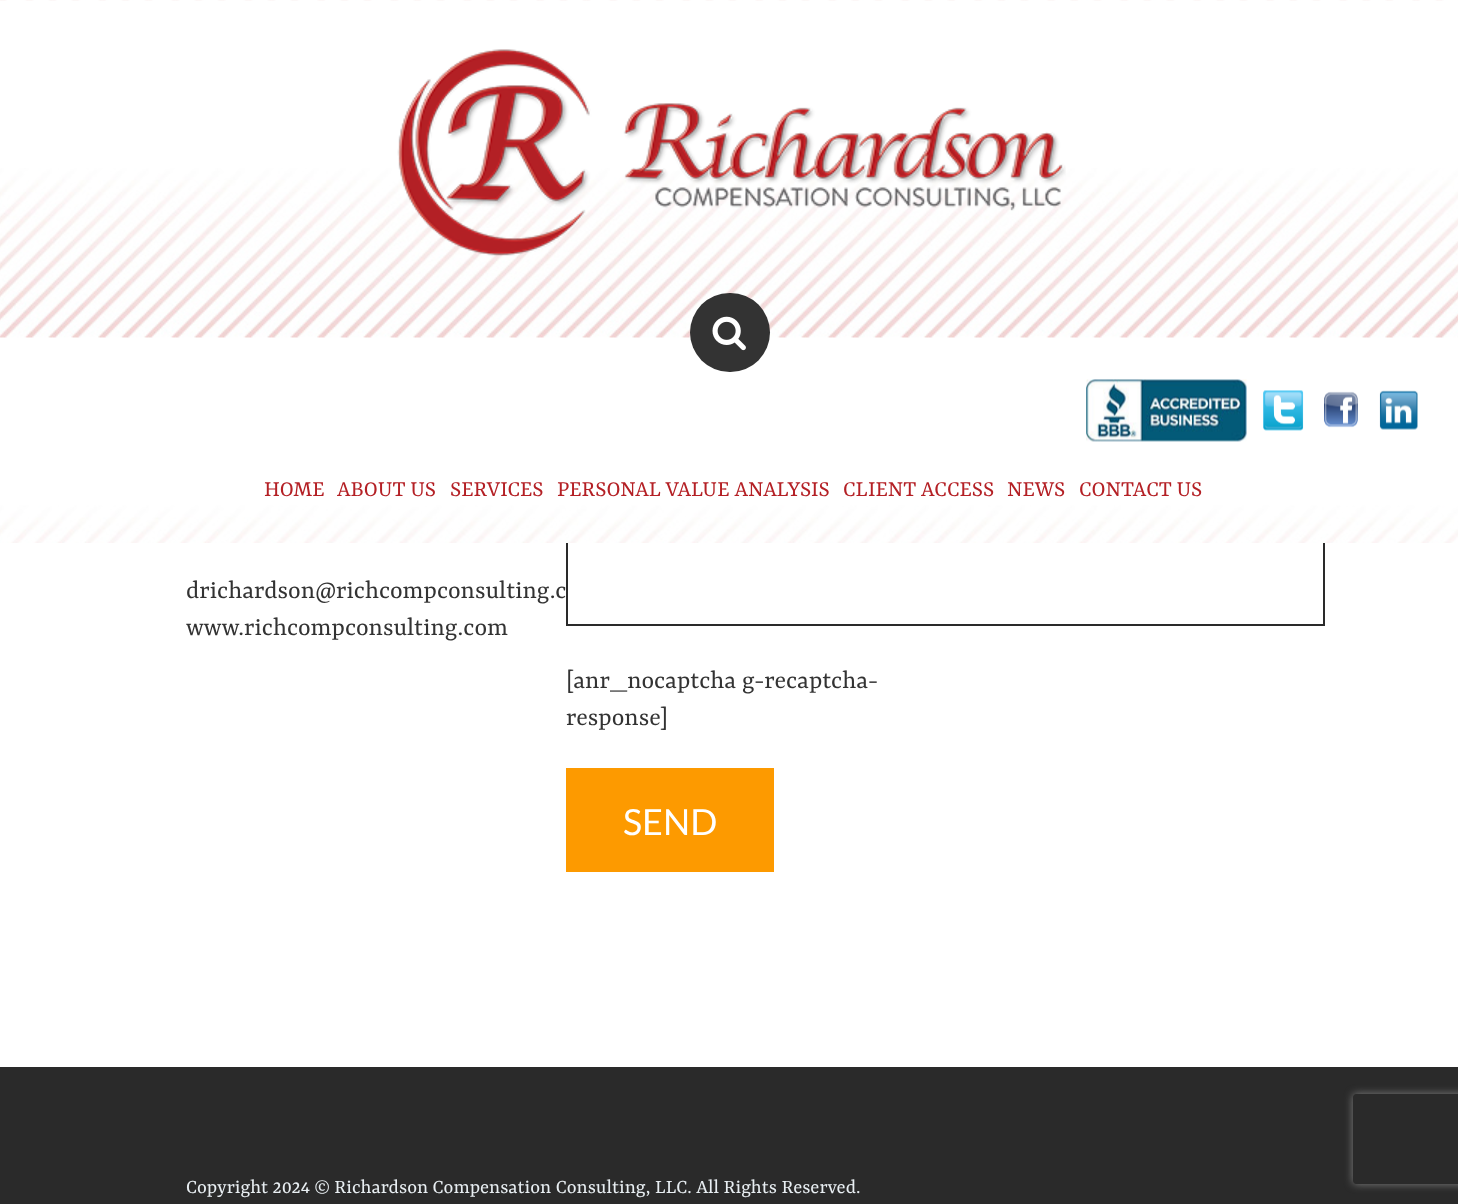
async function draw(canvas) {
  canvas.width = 1458
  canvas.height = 1204
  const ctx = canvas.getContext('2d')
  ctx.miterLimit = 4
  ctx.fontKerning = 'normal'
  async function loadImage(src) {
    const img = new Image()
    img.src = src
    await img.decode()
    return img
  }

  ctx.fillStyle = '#2a2a2a'
  ctx.fillRect(0, 0, 1458, 1204)
  ctx.fillStyle = '#fff'
  ctx.fillRect(0, 543, 1458, 524)
  ctx.strokeStyle = '#2a2a2a'
  ctx.lineWidth = 2
  ctx.strokeRect(567, 327, 757, 298)
  ctx.drawImage(await loadImage('image0.png'), 0, 0, 1458, 543)
  ctx.drawImage(await loadImage('image1.png'), 397, 49, 669, 207)
  ctx.fillStyle = '#333'
  ctx.beginPath()
  ctx.roundRect(690, 293, 80, 79, 39.5)
  ctx.fill()
  ctx.drawImage(await loadImage('image2.png'), 712, 316, 34, 35)
  ctx.drawImage(await loadImage('image3.png'), 1086, 379, 161, 63)
  ctx.drawImage(await loadImage('image4.png'), 1263, 390, 41, 41)
  ctx.drawImage(await loadImage('image5.png'), 1324, 391, 34, 37)
  ctx.drawImage(await loadImage('image6.png'), 1379, 390, 39, 40)
  ctx.font = '24px Yrsa'
  ctx.fillStyle = '#b42025'
  ctx.fillText('HOME', 264, 496)
  ctx.fillText('ABOUT US', 337, 496)
  ctx.fillText('SERVICES', 450, 496)
  ctx.fillText('PERSONAL VALUE ANALYSIS', 557, 496)
  ctx.fillText('CLIENT ACCESS', 843, 496)
  ctx.fillText('NEWS', 1007, 496)
  ctx.fillText('CONTACT US', 1079, 496)
  ctx.font = '27px Yrsa'
  ctx.fillStyle = '#333'
  ctx.fillText('drichardson@richcompconsulting.c', 186, 598)
  ctx.fillText('www.richcompconsulting.com', 186, 635)
  ctx.fillText('[anr_nocaptcha g-recaptcha-', 566, 688)
  ctx.fillText('response]', 566, 725)
  ctx.fillStyle = '#fd9a00'
  ctx.fillRect(566, 768, 208, 104)
  ctx.font = '36px Lato'
  ctx.fillStyle = '#fff'
  ctx.fillText('SEND', 623, 835)
  ctx.font = '21px Yrsa'
  ctx.fillStyle = '#e8eef2'
  ctx.fillText('Copyright 2024 © Richardson Compensation Consulting, LLC. All Rights Reserved.', 186, 1193)
  ctx.save()
  ctx.beginPath()
  ctx.moveTo(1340, 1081)
  ctx.lineTo(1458, 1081)
  ctx.lineTo(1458, 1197)
  ctx.lineTo(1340, 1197)
  ctx.closePath()
  ctx.moveTo(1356, 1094)
  ctx.lineTo(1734, 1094)
  ctx.bezierCurveTo(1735.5, 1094, 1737, 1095.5, 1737, 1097)
  ctx.lineTo(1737, 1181)
  ctx.bezierCurveTo(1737, 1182.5, 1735.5, 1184, 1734, 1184)
  ctx.lineTo(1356, 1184)
  ctx.bezierCurveTo(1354.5, 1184, 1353, 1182.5, 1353, 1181)
  ctx.lineTo(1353, 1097)
  ctx.bezierCurveTo(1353, 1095.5, 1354.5, 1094, 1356, 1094)
  ctx.closePath()
  ctx.clip('evenodd')
  ctx.fillStyle = '#808080'
  ctx.filter = 'blur(4px)'
  ctx.beginPath()
  ctx.roundRect(1353, 1094, 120, 90, 3)
  ctx.fill()
  ctx.filter = 'none'
  ctx.restore()
}

draw(document.querySelector('canvas'))
